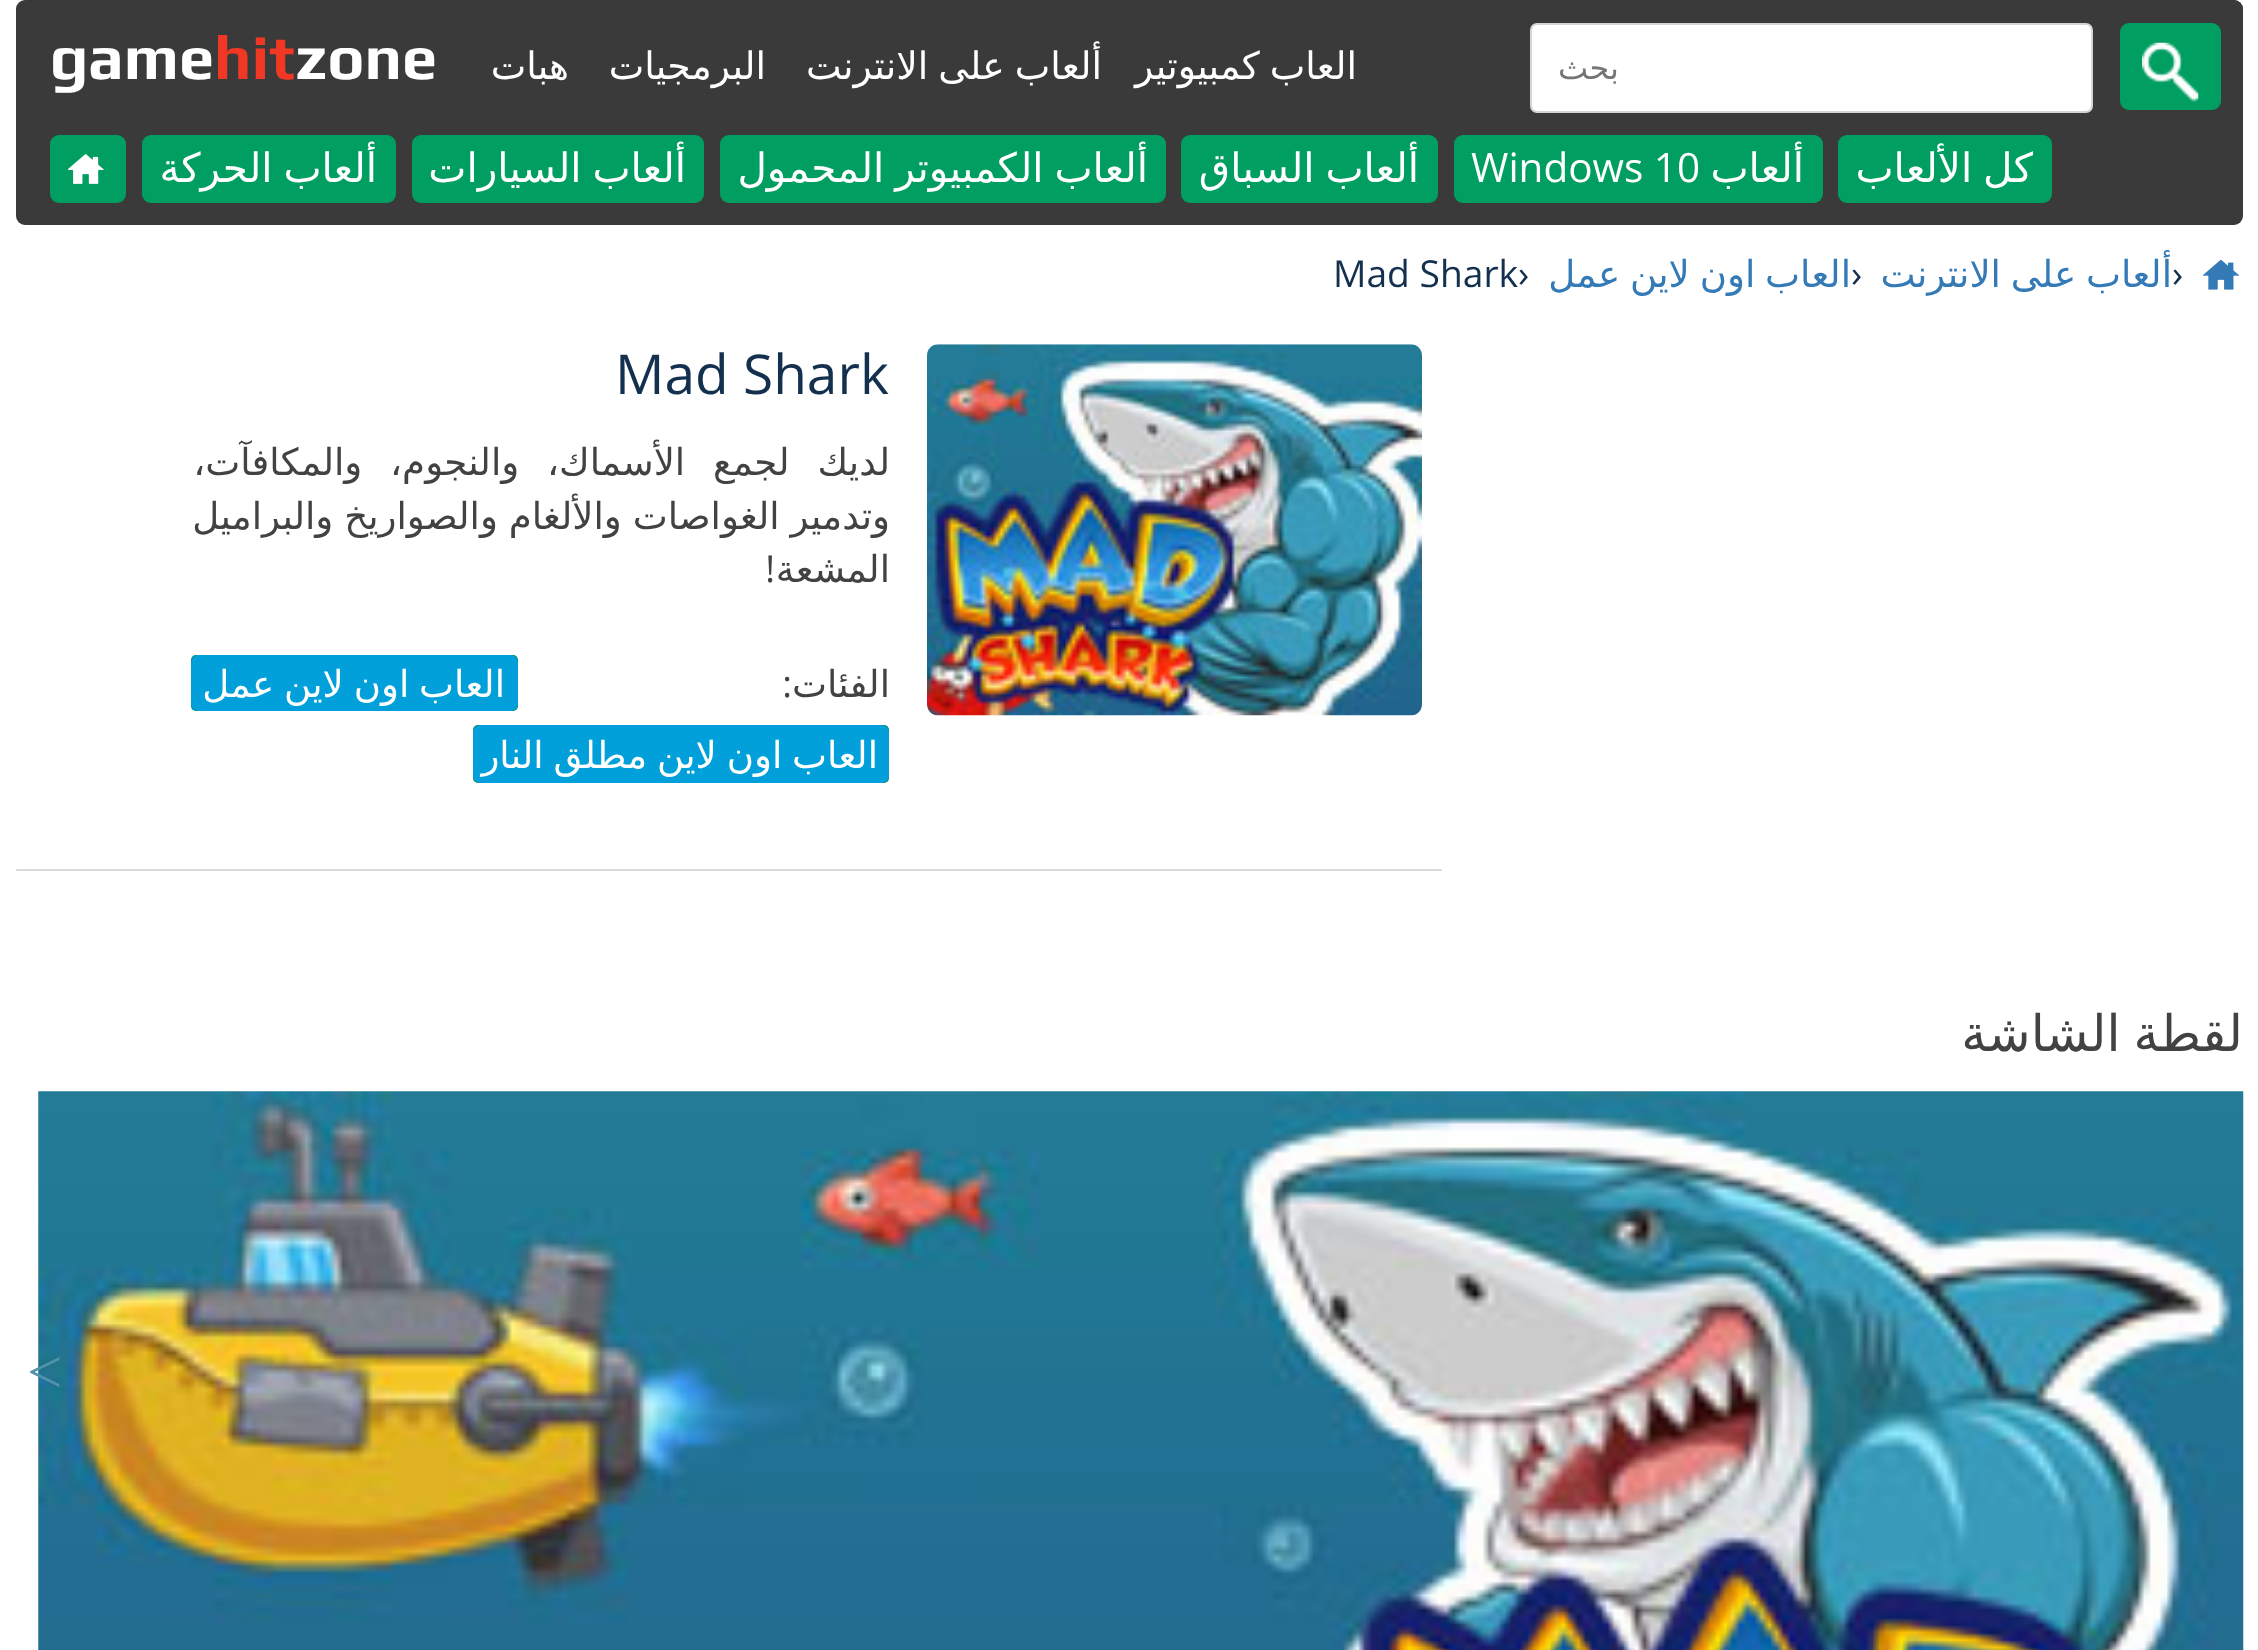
async function draw(canvas) {
  canvas.width = 2258
  canvas.height = 1650
  const ctx = canvas.getContext('2d')
  ctx.miterLimit = 4
  ctx.fontKerning = 'normal'
  async function loadImage(src) {
    const img = new Image()
    img.src = src
    await img.decode()
    return img
  }

  ctx.fillStyle = '#fff'
  ctx.fillRect(0, 0, 2258, 1650)
  ctx.fillStyle = '#3a3a3a'
  ctx.beginPath()
  ctx.roundRect(16, 0, 2227, 225, 9)
  ctx.fill()
  ctx.beginPath()
  ctx.roundRect(1508, 0, 735, 135, [0, 9, 0, 0])
  ctx.fill()
  ctx.fillStyle = '#009e61'
  ctx.beginPath()
  ctx.roundRect(2120, 23, 101, 87, 9)
  ctx.fill()
  ctx.drawImage(await loadImage('image0.png'), 2142, 42, 57, 60)
  ctx.fillStyle = '#fff'
  ctx.beginPath()
  ctx.roundRect(1531, 24, 561, 88, 6)
  ctx.fill()
  ctx.strokeStyle = '#d5d5d5'
  ctx.lineWidth = 2
  ctx.stroke()
  ctx.direction = 'rtl'
  ctx.font = '32px DejaVu Sans'
  ctx.fillStyle = '#757575'
  ctx.fillText('بحث', 1619, 79)
  ctx.wordSpacing = '-2px'
  ctx.font = '37.75px DejaVu Sans'
  ctx.fillStyle = '#fff'
  ctx.fillText('العاب كمبيوتير', 1357, 79)
  ctx.fillText('ألعاب على الانترنت', 1102, 79)
  ctx.wordSpacing = '0px'
  ctx.fillText('البرمجيات', 766, 79)
  ctx.fillText('هبات', 569, 79)
  ctx.direction = 'ltr'
  ctx.font = 'bold 63px Play'
  ctx.fillText('zone', 295, 79)
  ctx.fillStyle = '#f13825'
  ctx.fillText('hit', 214, 79)
  ctx.fillStyle = '#fff'
  ctx.fillText('game', 50, 79)
  ctx.fillStyle = '#009e61'
  ctx.beginPath()
  ctx.roundRect(1838, 135, 214, 68, 9)
  ctx.fill()
  ctx.wordSpacing = '-2px'
  ctx.direction = 'rtl'
  ctx.font = '40.5px DejaVu Sans'
  ctx.fillStyle = '#fff'
  ctx.fillText('كل الألعاب', 2033, 182)
  ctx.fillStyle = '#009e61'
  ctx.beginPath()
  ctx.roundRect(1454, 135, 369, 68, 9)
  ctx.fill()
  ctx.wordSpacing = '0px'
  ctx.fillStyle = '#fff'
  ctx.fillText('ألعاب', 1804, 182)
  ctx.direction = 'ltr'
  ctx.font = '40.5px Open Sans'
  ctx.fillText('Windows 10', 1471, 182)
  ctx.fillStyle = '#009e61'
  ctx.beginPath()
  ctx.roundRect(1181, 135, 257, 68, 9)
  ctx.fill()
  ctx.wordSpacing = '-2px'
  ctx.direction = 'rtl'
  ctx.font = '40.5px DejaVu Sans'
  ctx.fillStyle = '#fff'
  ctx.fillText('ألعاب السباق', 1419, 182)
  ctx.fillStyle = '#009e61'
  ctx.beginPath()
  ctx.roundRect(720, 135, 446, 68, 9)
  ctx.fill()
  ctx.fillStyle = '#fff'
  ctx.fillText('ألعاب الكمبيوتر المحمول', 1148, 182)
  ctx.fillStyle = '#009e61'
  ctx.beginPath()
  ctx.roundRect(412, 135, 292, 68, 9)
  ctx.fill()
  ctx.fillStyle = '#fff'
  ctx.fillText('ألعاب السيارات', 686, 182)
  ctx.fillStyle = '#009e61'
  ctx.beginPath()
  ctx.roundRect(142, 135, 254, 68, 9)
  ctx.fill()
  ctx.fillStyle = '#fff'
  ctx.fillText('ألعاب الحركة', 377, 182)
  ctx.fillStyle = '#009e61'
  ctx.beginPath()
  ctx.roundRect(50, 135, 76, 68, 9)
  ctx.fill()
  ctx.drawImage(await loadImage('image1.png'), 68, 154, 36, 30)
  ctx.drawImage(await loadImage('image2.png'), 2203, 259, 37, 31)
  ctx.wordSpacing = '0px'
  ctx.direction = 'ltr'
  ctx.font = '37.2px Open Sans'
  ctx.fillStyle = '#14304f'
  ctx.fillText('›', 2172, 287)
  ctx.wordSpacing = '-2px'
  ctx.direction = 'rtl'
  ctx.font = '37.2px DejaVu Sans'
  ctx.fillStyle = '#337ab7'
  ctx.fillText('ألعاب على الانترنت', 2172, 287)
  ctx.wordSpacing = '0px'
  ctx.direction = 'ltr'
  ctx.font = '37.2px Open Sans'
  ctx.fillStyle = '#14304f'
  ctx.fillText('›', 1851, 287)
  ctx.wordSpacing = '-2px'
  ctx.direction = 'rtl'
  ctx.font = '37.2px DejaVu Sans'
  ctx.fillStyle = '#337ab7'
  ctx.fillText('العاب اون لاين عمل', 1851, 287)
  ctx.wordSpacing = '0px'
  ctx.direction = 'ltr'
  ctx.font = '37.2px Open Sans'
  ctx.fillStyle = '#14304f'
  ctx.fillText('›', 1518, 287)
  ctx.fillText('Mad Shark', 1333, 287)
  ctx.drawImage(await loadImage('image3.png'), 927, 344, 495, 372)
  ctx.font = '55px Open Sans'
  ctx.fillText('Mad Shark', 615, 394)
  ctx.wordSpacing = '16px'
  ctx.direction = 'rtl'
  ctx.font = '37.2px DejaVu Sans'
  ctx.fillStyle = '#424242'
  ctx.fillText('لديك لجمع الأسماك، والنجوم، والمكافآت،', 890, 475)
  ctx.wordSpacing = '-1px'
  ctx.fillText('وتدمير الغواصات والألغام والصواريخ والبراميل', 890, 529)
  ctx.wordSpacing = '0px'
  ctx.fillText('المشعة', 890, 582)
  ctx.font = '37.2px Open Sans'
  ctx.fillText('!', 775, 582)
  ctx.font = '37.2px DejaVu Sans'
  ctx.fillText('الفئات', 890, 697)
  ctx.font = '37.2px Open Sans'
  ctx.fillText(':', 792, 697)
  ctx.fillStyle = '#008551'
  ctx.beginPath()
  ctx.roundRect(191, 655, 327, 56, 5)
  ctx.fill()
  ctx.fillStyle = '#01a0da'
  ctx.beginPath()
  ctx.roundRect(191, 655, 327, 56, 7)
  ctx.fill()
  ctx.wordSpacing = '-2px'
  ctx.font = '37.2px DejaVu Sans'
  ctx.fillStyle = '#fff'
  ctx.fillText('العاب اون لاين عمل', 505, 697)
  ctx.fillStyle = '#008551'
  ctx.beginPath()
  ctx.roundRect(473, 725, 416, 58, 5)
  ctx.fill()
  ctx.fillStyle = '#01a0da'
  ctx.beginPath()
  ctx.roundRect(473, 725, 416, 58, 7)
  ctx.fill()
  ctx.fillStyle = '#fff'
  ctx.fillText('العاب اون لاين مطلق النار', 878, 768)
  ctx.fillStyle = '#d9d9d9'
  ctx.beginPath()
  ctx.roundRect(16, 869, 1426, 2, 1)
  ctx.fill()
  ctx.wordSpacing = '-3px'
  ctx.font = '50.5px DejaVu Sans'
  ctx.fillStyle = '#424242'
  ctx.fillText('لقطة الشاشة', 2243, 1051)
  ctx.drawImage(await loadImage('image4.png'), 38, 1091, 2206, 559)
  ctx.wordSpacing = '0px'
  ctx.direction = 'ltr'
  ctx.font = '63px Liberation Serif'
  ctx.fillStyle = '#5192a8'
  ctx.fillText('<', 27, 1393)
}

draw(document.querySelector('canvas'))
